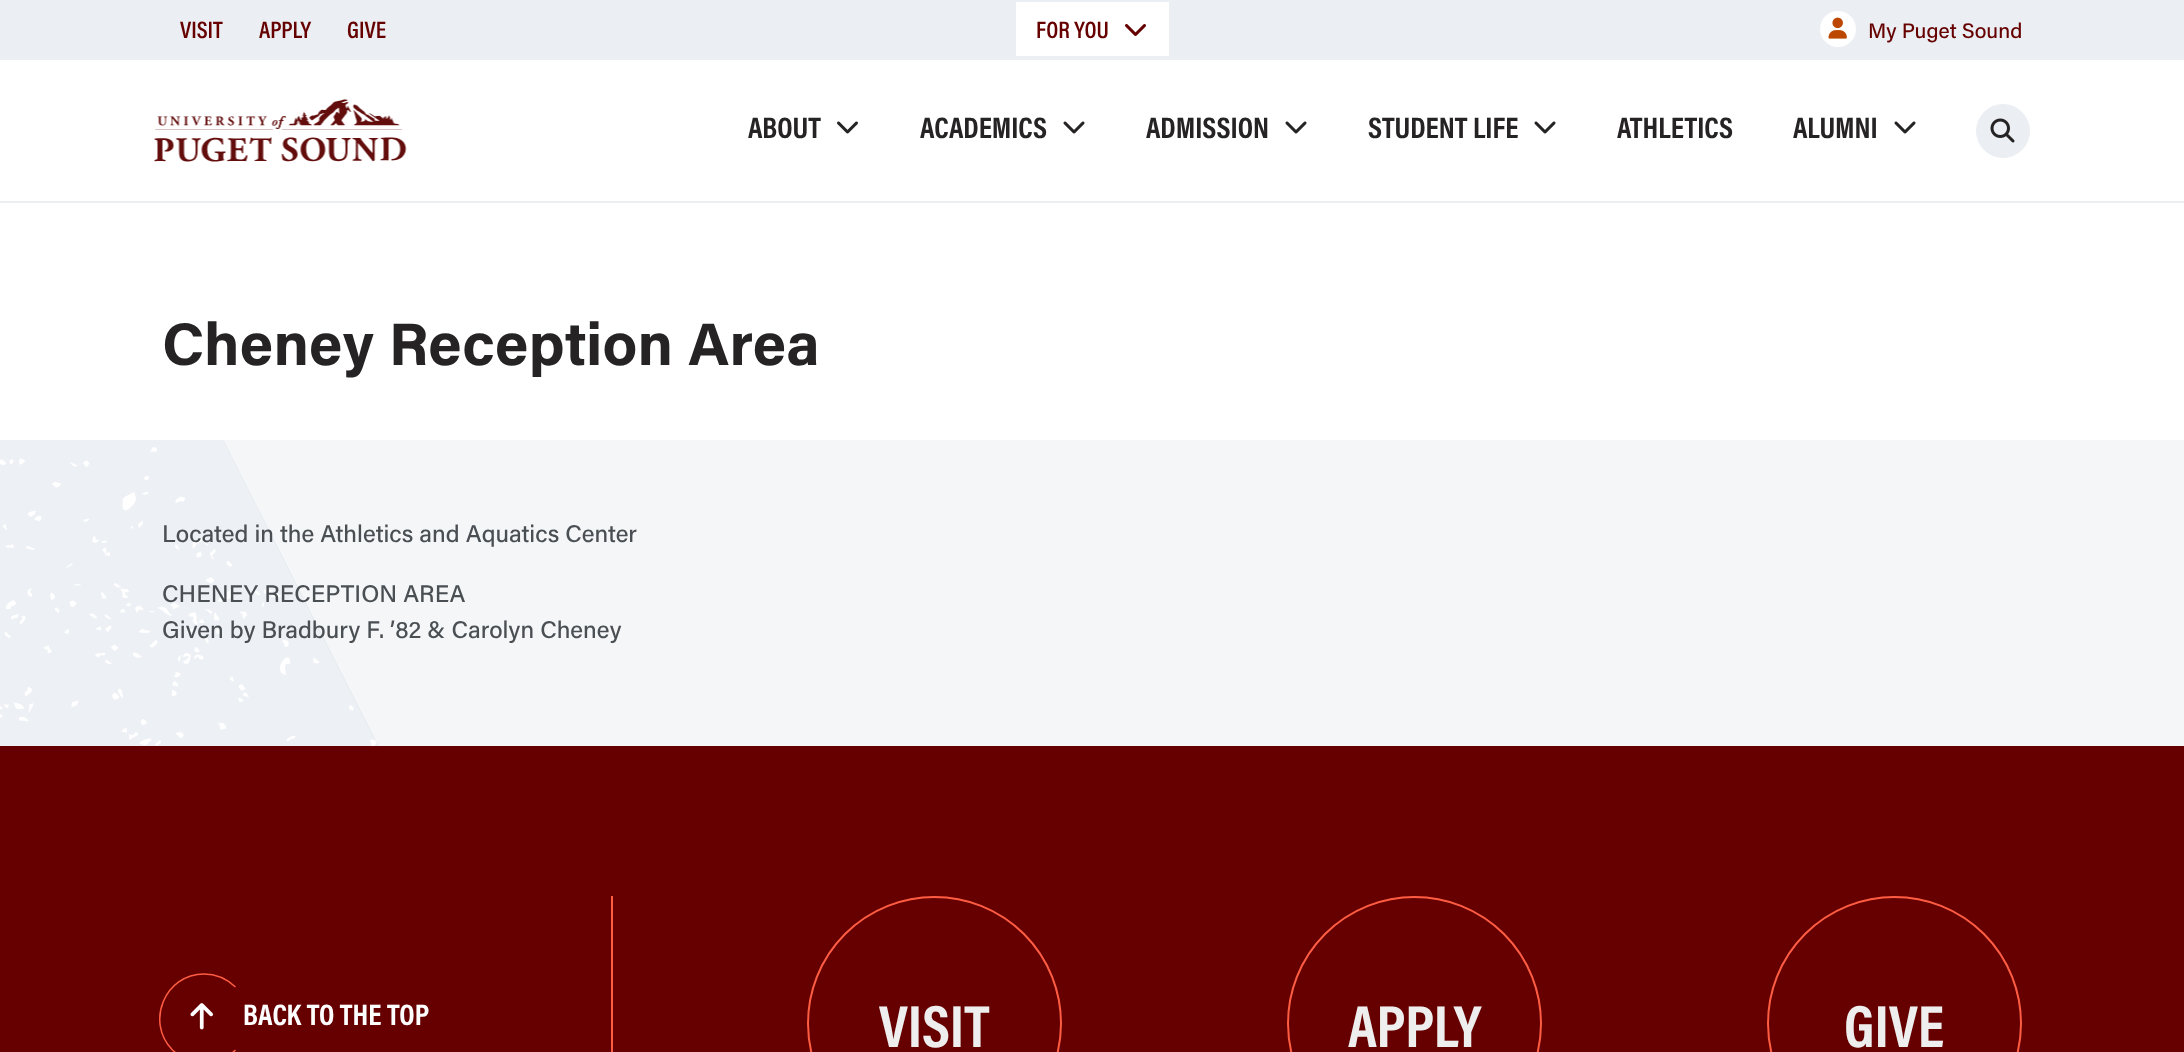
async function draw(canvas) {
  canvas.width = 2184
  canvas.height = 1052
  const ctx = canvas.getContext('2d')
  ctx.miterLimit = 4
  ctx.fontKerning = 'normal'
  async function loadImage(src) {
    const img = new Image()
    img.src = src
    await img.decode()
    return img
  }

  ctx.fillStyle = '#fff'
  ctx.fillRect(0, 0, 2184, 1052)
  ctx.drawImage(await loadImage('image0.png'), 0, 440, 2184, 306)
  ctx.fillStyle = '#ebeef2'
  ctx.fillRect(0, 201, 2184, 2)
  ctx.fillRect(0, 0, 2184, 60)
  ctx.font = '600 24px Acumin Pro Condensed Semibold'
  ctx.fillStyle = '#600'
  ctx.fillText('VISIT', 180, 38)
  ctx.fillText('APPLY', 259, 38)
  ctx.fillText('GIVE', 347, 38)
  ctx.fillStyle = '#fff'
  ctx.fillRect(1016, 2, 153, 54)
  ctx.fillStyle = '#600'
  ctx.fillText('FOR YOU', 1036, 38)
  ctx.drawImage(await loadImage('image1.png'), 1125, 24, 21, 12)
  ctx.fillStyle = '#fff'
  ctx.beginPath()
  ctx.arc(1838, 29, 18, 0, 2 * Math.PI)
  ctx.fill()
  ctx.drawImage(await loadImage('image2.png'), 1828, 17, 19, 22)
  ctx.font = '500 21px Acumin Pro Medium'
  ctx.fillStyle = '#600'
  ctx.fillText('My Puget Sound', 1868, 38)
  ctx.drawImage(await loadImage('image3.png'), 154, 99, 253, 63)
  ctx.font = 'bold 30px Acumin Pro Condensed'
  ctx.fillStyle = '#252323'
  ctx.fillText('ABOUT', 748, 138)
  ctx.drawImage(await loadImage('image4.png'), 837, 121, 21, 13)
  ctx.fillText('ACADEMICS', 920, 138)
  ctx.drawImage(await loadImage('image5.png'), 1063, 121, 22, 13)
  ctx.fillText('ADMISSION', 1146, 138)
  ctx.drawImage(await loadImage('image5.png'), 1285, 121, 22, 13)
  ctx.fillText('STUDENT LIFE', 1368, 138)
  ctx.drawImage(await loadImage('image5.png'), 1534, 121, 22, 13)
  ctx.fillText('ATHLETICS', 1617, 138)
  ctx.fillText('ALUMNI', 1793, 138)
  ctx.drawImage(await loadImage('image5.png'), 1894, 121, 22, 13)
  ctx.fillStyle = '#ebeef2'
  ctx.beginPath()
  ctx.arc(2003, 131, 27, 0, 2 * Math.PI)
  ctx.fill()
  ctx.drawImage(await loadImage('image6.png'), 1990, 118, 25, 25)
  ctx.letterSpacing = '0.15px'
  ctx.font = 'bold 60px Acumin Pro'
  ctx.fillStyle = '#252323'
  ctx.fillText('Cheney Reception Area', 162, 365)
  ctx.letterSpacing = '0px'
  ctx.font = '500 24px Acumin Pro Medium'
  ctx.fillStyle = '#4a4f54'
  ctx.fillText('Located in the Athletics and Aquatics Center', 162, 542)
  ctx.fillText('CHENEY RECEPTION AREA', 162, 602)
  ctx.fillText('Given by Bradbury F. ’82 & Carolyn Cheney', 162, 638)
  ctx.fillStyle = '#600'
  ctx.fillRect(0, 746, 2184, 306)
  ctx.fillStyle = '#ff5d43'
  ctx.fillRect(611, 896, 2, 156)
  ctx.drawImage(await loadImage('image7.png'), 190, 1003, 23, 27)
  ctx.beginPath()
  ctx.moveTo(235.5, 1050)
  ctx.bezierCurveTo(225, 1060, 209.5, 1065, 195.5, 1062)
  ctx.bezierCurveTo(187, 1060, 179, 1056, 172.5, 1050)
  ctx.bezierCurveTo(145, 1022, 165, 974, 204, 974)
  ctx.bezierCurveTo(215.5, 974, 227, 979, 235.5, 987)
  ctx.strokeStyle = '#ff5d43'
  ctx.lineWidth = 1.5
  ctx.stroke()
  ctx.font = 'bold 30px Acumin Pro Condensed'
  ctx.fillStyle = '#fff'
  ctx.fillText('BACK TO THE TOP', 243, 1025)
  ctx.beginPath()
  ctx.arc(934.5, 1023.5, 126.5, 0, 2 * Math.PI)
  ctx.lineWidth = 2
  ctx.stroke()
  ctx.font = 'bold 60px Acumin Pro Condensed'
  ctx.fillStyle = '#eee'
  ctx.fillText('VISIT', 879, 1047)
  ctx.beginPath()
  ctx.arc(1414.5, 1023.5, 126.5, 0, 2 * Math.PI)
  ctx.stroke()
  ctx.fillText('APPLY', 1348, 1047)
  ctx.beginPath()
  ctx.arc(1894.5, 1023.5, 126.5, 0, 2 * Math.PI)
  ctx.stroke()
  ctx.fillText('GIVE', 1844, 1047)
}

draw(document.querySelector('canvas'))
